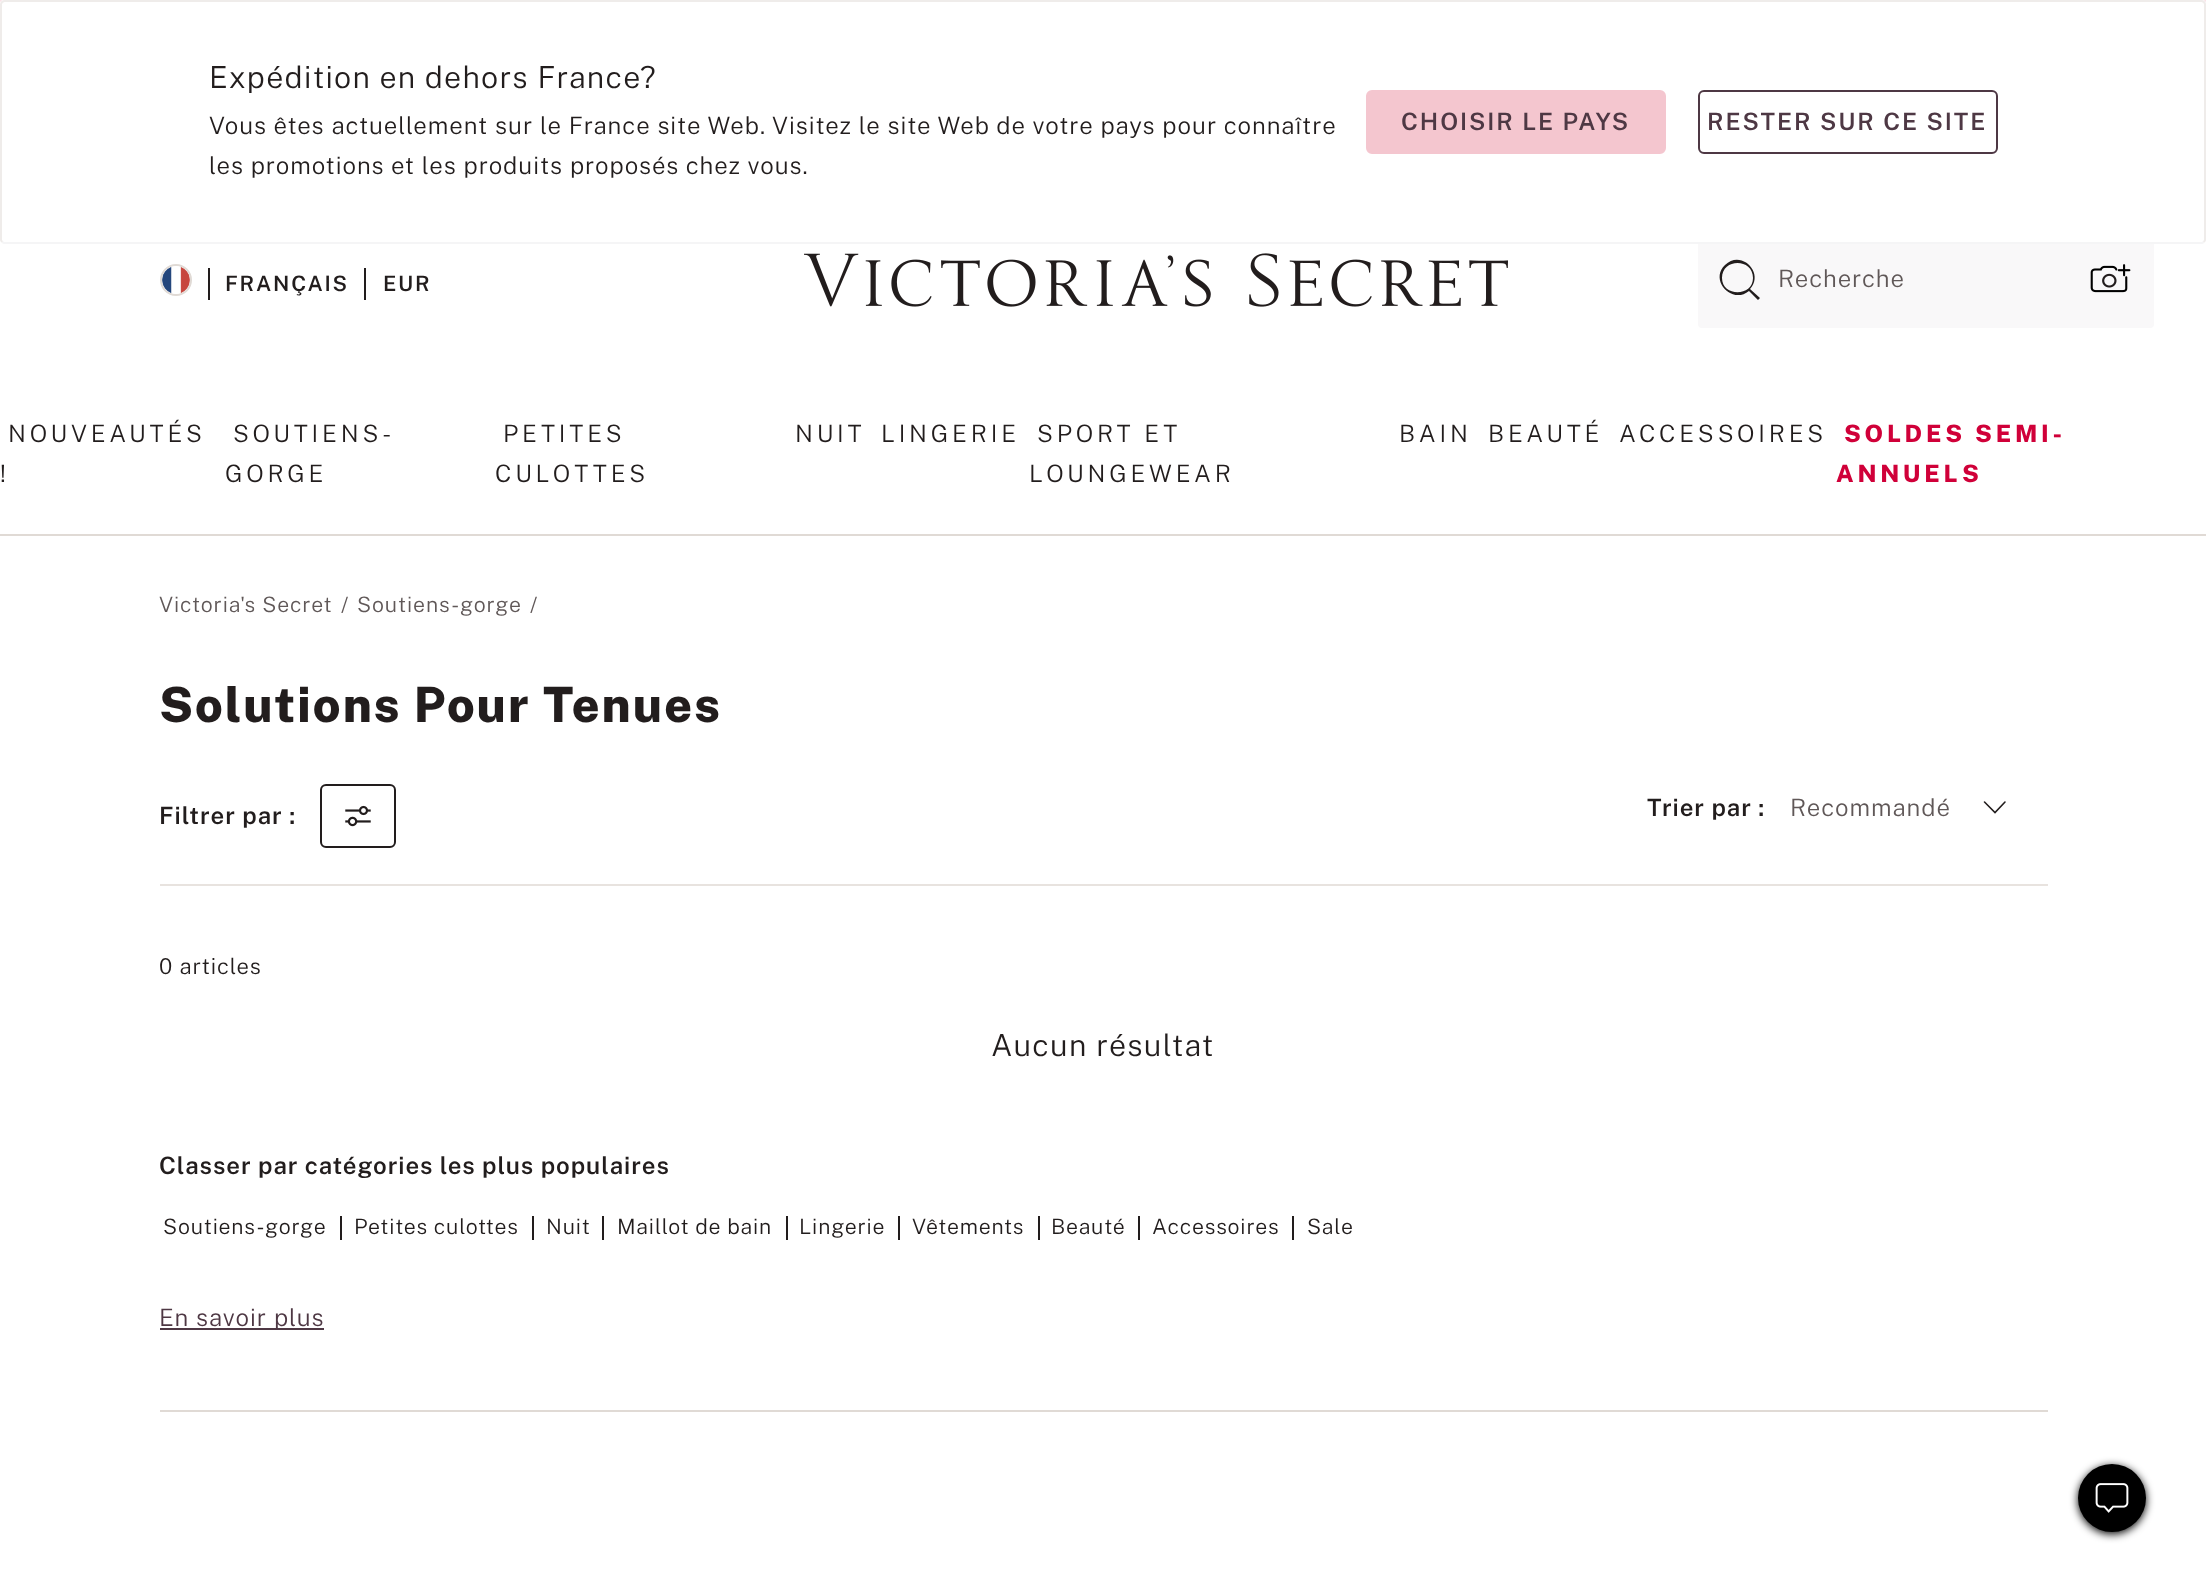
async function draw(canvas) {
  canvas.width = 2206
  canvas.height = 1592
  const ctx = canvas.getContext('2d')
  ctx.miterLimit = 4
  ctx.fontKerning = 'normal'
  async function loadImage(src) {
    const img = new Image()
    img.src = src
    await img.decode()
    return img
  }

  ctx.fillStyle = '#fff'
  ctx.fillRect(0, 0, 2206, 1592)
  ctx.fillStyle = '#f9e2e7'
  ctx.fillRect(0, 0, 2206, 4)
  ctx.fillStyle = '#f9f8f9'
  ctx.beginPath()
  ctx.roundRect(1698, 232, 456, 96, 4)
  ctx.fill()
  ctx.fillStyle = '#fff'
  ctx.beginPath()
  ctx.roundRect(0, 0, 2206, 244, 4)
  ctx.fill()
  ctx.beginPath()
  ctx.moveTo(2204, 242)
  ctx.lineTo(2202, 243)
  ctx.lineTo(4, 243)
  ctx.lineTo(2, 242)
  ctx.strokeStyle = '#f5f5f6'
  ctx.lineWidth = 2
  ctx.stroke()
  ctx.beginPath()
  ctx.moveTo(2, 242)
  ctx.lineTo(1, 240)
  ctx.lineTo(1, 4)
  ctx.lineTo(2, 2)
  ctx.lineTo(4, 1)
  ctx.lineTo(2202, 1)
  ctx.lineTo(2204, 2)
  ctx.lineTo(2205, 4)
  ctx.lineTo(2205, 240)
  ctx.lineTo(2204, 242)
  ctx.strokeStyle = '#efecea'
  ctx.stroke()
  ctx.letterSpacing = '1.25px'
  ctx.font = '300 30.4px Public Sans'
  ctx.fillStyle = '#221d1d'
  ctx.fillText('Expédition en dehors France', 209, 88)
  ctx.fillText('?', 640, 88)
  ctx.letterSpacing = '0.95px'
  ctx.font = '300 24px Public Sans'
  ctx.fillText('Vous êtes actuellement sur le France site Web. Visitez le site Web de votre pays pour connaître', 209, 134)
  ctx.fillText('les promotions et les produits proposés chez vous.', 209, 174)
  ctx.fillStyle = '#f4c6cf'
  ctx.beginPath()
  ctx.roundRect(1367, 91, 298, 62, 5)
  ctx.fill()
  ctx.strokeStyle = '#f4c6cf'
  ctx.stroke()
  ctx.letterSpacing = '1.9px'
  ctx.font = '600 24px Public Sans'
  ctx.fillStyle = '#4e3844'
  ctx.fillText('CHOISIR LE PAYS', 1401, 130)
  ctx.beginPath()
  ctx.roundRect(1699, 91, 298, 62, 5)
  ctx.strokeStyle = '#4e3844'
  ctx.stroke()
  ctx.fillText('RESTER SUR CE SITE', 1707, 130)
  ctx.beginPath()
  ctx.arc(176, 280, 15, 0, 2 * Math.PI)
  ctx.strokeStyle = '#e0dad5'
  ctx.stroke()
  ctx.drawImage(await loadImage('image0.png'), 162, 266, 28, 28)
  ctx.fillStyle = '#221d1d'
  ctx.fillRect(208, 268, 2, 32)
  ctx.letterSpacing = '1.75px'
  ctx.font = '600 21.25px Public Sans'
  ctx.fillText('FRANÇAIS', 225, 291)
  ctx.fillRect(364, 268, 2, 32)
  ctx.fillText('EUR', 383, 291)
  ctx.drawImage(await loadImage('image1.png'), 804, 253, 704, 54)
  ctx.beginPath()
  ctx.moveTo(1753, 278)
  ctx.bezierCurveTo(1753, 297, 1722, 297, 1722, 278)
  ctx.bezierCurveTo(1722, 258, 1753, 258, 1753, 278)
  ctx.closePath()
  ctx.moveTo(1749, 291)
  ctx.bezierCurveTo(1732, 305, 1709, 280, 1725, 265)
  ctx.bezierCurveTo(1741, 249, 1765, 273, 1750, 289)
  ctx.lineTo(1760, 298)
  ctx.lineTo(1758, 300)
  ctx.closePath()
  ctx.fill('evenodd')
  ctx.letterSpacing = '0.95px'
  ctx.font = '300 24px Public Sans'
  ctx.fillStyle = '#605858'
  ctx.fillText('Recherche', 1778, 287)
  ctx.drawImage(await loadImage('image2.png'), 2090, 264, 41, 29)
  ctx.letterSpacing = '3.8px'
  ctx.fillStyle = '#221d1d'
  ctx.fillText('NOUVEAUTÉS', 8, 442)
  ctx.fillText('!', 0, 482)
  ctx.fillText('SOUTIENS-', 233, 442)
  ctx.fillText('GORGE', 225, 482)
  ctx.fillText('PETITES', 503, 442)
  ctx.fillText('CULOTTES', 495, 482)
  ctx.fillText('NUIT', 795, 442)
  ctx.fillText('LINGERIE', 881, 442)
  ctx.fillText('SPORT ET', 1037, 442)
  ctx.fillText('LOUNGEWEAR', 1029, 482)
  ctx.fillText('BAIN', 1399, 442)
  ctx.fillText('BEAUTÉ', 1488, 442)
  ctx.fillText('ACCESSOIRES', 1619, 442)
  ctx.font = '800 24px Public Sans'
  ctx.fillStyle = '#d00039'
  ctx.fillText('SOLDES SEMI-', 1844, 442)
  ctx.fillText('ANNUELS', 1836, 482)
  ctx.fillStyle = '#e0dad5'
  ctx.fillRect(0, 534, 2206, 2)
  ctx.letterSpacing = '0.9px'
  ctx.font = '300 21.25px Public Sans'
  ctx.fillStyle = '#605858'
  ctx.fillText('Victoria\'s Secret', 159, 612)
  ctx.fillText('/', 341, 612)
  ctx.fillText('Soutiens-gorge', 357, 612)
  ctx.fillText('/', 530, 612)
  ctx.letterSpacing = '1.95px'
  ctx.font = '800 48.6px Public Sans'
  ctx.fillStyle = '#221d1d'
  ctx.fillText('Solutions Pour Tenues', 159, 722)
  ctx.fillStyle = '#e8e3df'
  ctx.fillRect(160, 884, 1888, 2)
  ctx.letterSpacing = '0.95px'
  ctx.font = '600 24px Public Sans'
  ctx.fillStyle = '#221d1d'
  ctx.fillText('Filtrer par :', 159, 824)
  ctx.beginPath()
  ctx.roundRect(321, 785, 74, 62, 5)
  ctx.strokeStyle = '#221d1d'
  ctx.stroke()
  ctx.drawImage(await loadImage('image3.png'), 345, 805, 26, 22)
  ctx.fillText('Trier par :', 1647, 816)
  ctx.font = '300 24px Public Sans'
  ctx.fillStyle = '#605858'
  ctx.fillText('Recommandé', 1790, 816)
  ctx.beginPath()
  ctx.moveTo(2005, 802)
  ctx.lineTo(1995, 812.5)
  ctx.lineTo(1984.5, 802)
  ctx.lineWidth = 1.6
  ctx.lineCap = 'round'
  ctx.stroke()
  ctx.letterSpacing = '0.9px'
  ctx.font = '300 22px Public Sans'
  ctx.fillStyle = '#221d1d'
  ctx.fillText('0 articles', 159, 974)
  ctx.letterSpacing = '1.25px'
  ctx.font = '300 30.4px Public Sans'
  ctx.fillText('Aucun résultat', 991, 1056)
  ctx.letterSpacing = '0.95px'
  ctx.font = '600 24px Public Sans'
  ctx.fillText('Classer par catégories les plus populaires', 159, 1174)
  ctx.letterSpacing = '0.8px'
  ctx.font = '300 21.25px Public Sans'
  ctx.fillText('Soutiens-gorge', 163, 1234)
  ctx.fillRect(340, 1216, 2, 24)
  ctx.fillText('Petites culottes', 354, 1234)
  ctx.fillRect(532, 1216, 2, 24)
  ctx.fillText('Nuit', 546, 1234)
  ctx.fillRect(602, 1216, 2, 24)
  ctx.fillText('Maillot de bain', 617, 1234)
  ctx.fillRect(786, 1216, 2, 24)
  ctx.fillText('Lingerie', 799, 1234)
  ctx.fillRect(898, 1216, 2, 24)
  ctx.fillText('Vêtements', 912, 1234)
  ctx.fillRect(1038, 1216, 2, 24)
  ctx.fillText('Beauté', 1051, 1234)
  ctx.fillRect(1138, 1216, 2, 24)
  ctx.fillText('Accessoires', 1152, 1234)
  ctx.fillRect(1292, 1216, 2, 24)
  ctx.fillText('Sale', 1307, 1234)
  ctx.fillStyle = '#4e3844'
  ctx.fillRect(160, 1328, 164, 2)
  ctx.letterSpacing = '0.95px'
  ctx.font = '300 24px Public Sans'
  ctx.fillText('En savoir plus', 159, 1326)
  ctx.fillStyle = '#e0dad5'
  ctx.fillRect(160, 1410, 1888, 2)
  ctx.fillStyle = '#000'
  ctx.filter = 'blur(4px)'
  ctx.beginPath()
  ctx.roundRect(2078, 1466, 68, 68, 34)
  ctx.fill()
  ctx.filter = 'none'
  ctx.beginPath()
  ctx.arc(2112, 1498, 34, 0, 2 * Math.PI)
  ctx.fill()
  ctx.drawImage(await loadImage('image4.png'), 2095, 1483, 34, 30)
}

draw(document.querySelector('canvas'))
